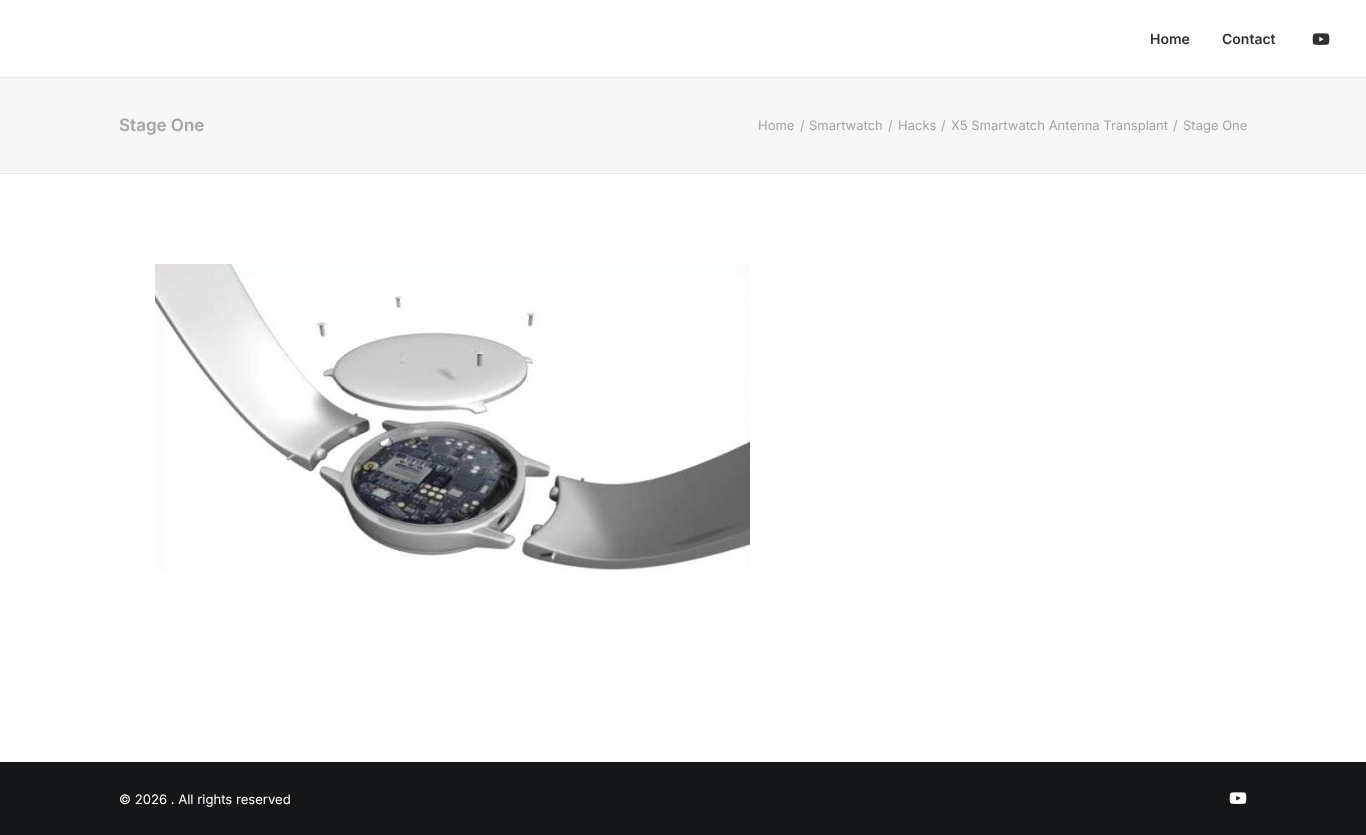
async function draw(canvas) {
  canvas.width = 1366
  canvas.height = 835
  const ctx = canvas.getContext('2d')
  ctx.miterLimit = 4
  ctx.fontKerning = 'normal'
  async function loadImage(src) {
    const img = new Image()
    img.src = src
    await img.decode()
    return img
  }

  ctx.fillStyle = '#141618'
  ctx.fillRect(0, 0, 1366, 835)
  ctx.fillStyle = '#fff'
  ctx.fillRect(0, 0, 1366, 77)
  ctx.font = '600 14px Inter'
  ctx.fillStyle = '#303133'
  ctx.fillText('Home', 1150, 44)
  ctx.fillText('Contact', 1222, 44)
  ctx.drawImage(await loadImage('image0.png'), 1312, 33, 18, 12)
  ctx.fillStyle = '#ebebeb'
  ctx.fillRect(0, 77, 1366, 1)
  ctx.fillStyle = '#f7f7f7'
  ctx.fillRect(0, 78, 1366, 95)
  ctx.fillStyle = '#eaeaea'
  ctx.fillRect(0, 173, 1366, 1)
  ctx.font = '600 17px Inter'
  ctx.fillStyle = '#a4a4a4'
  ctx.fillText('Stage One', 119, 131)
  ctx.font = '13px Inter'
  ctx.fillText('Home', 758, 130)
  ctx.fillText('/', 800, 130)
  ctx.fillText('Smartwatch', 809, 130)
  ctx.fillText('/', 888, 130)
  ctx.fillText('Hacks', 898, 130)
  ctx.fillText('/', 941, 130)
  ctx.fillText('X5 Smartwatch Antenna Transplant', 951, 130)
  ctx.fillText('/', 1173, 130)
  ctx.fillText('Stage One', 1183, 130)
  ctx.fillStyle = '#fff'
  ctx.fillRect(0, 174, 1366, 588)
  ctx.drawImage(await loadImage('image1.png'), 155, 264, 595, 307)
  ctx.font = '13.1px Inter'
  ctx.fillText('© 2026 . All rights reserved', 119, 804)
  ctx.drawImage(await loadImage('image2.png'), 1229, 792, 18, 12)
}

draw(document.querySelector('canvas'))
